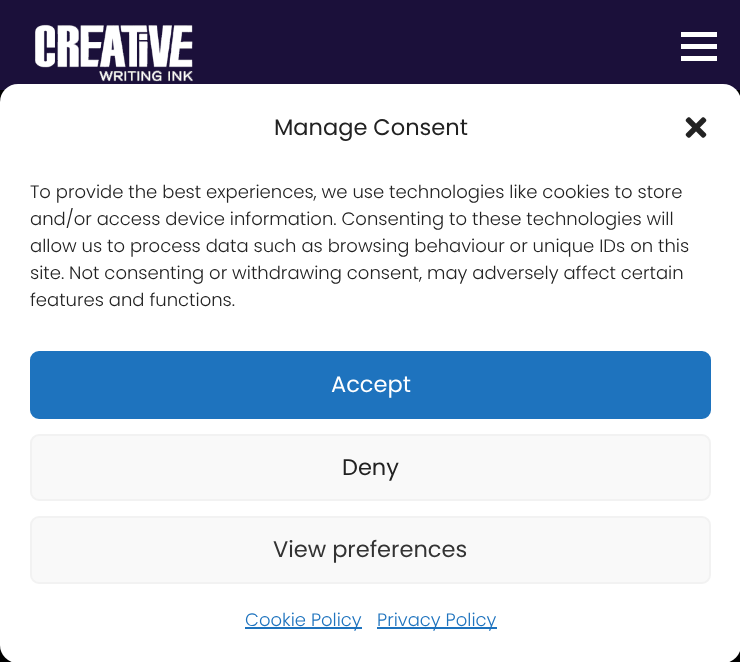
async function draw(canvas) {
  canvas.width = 740
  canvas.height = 662
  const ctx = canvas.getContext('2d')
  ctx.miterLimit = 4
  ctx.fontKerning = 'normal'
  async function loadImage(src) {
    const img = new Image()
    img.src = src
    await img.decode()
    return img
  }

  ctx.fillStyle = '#000'
  ctx.fillRect(0, 0, 740, 662)
  ctx.fillStyle = '#1b103a'
  ctx.fillRect(0, 0, 740, 90)
  ctx.drawImage(await loadImage('image0.png'), 35, 24, 158, 58)
  ctx.fillStyle = '#fff'
  ctx.fillRect(681, 44, 36, 5)
  ctx.fillRect(681, 32, 36, 5)
  ctx.fillRect(681, 56, 36, 5)
  ctx.beginPath()
  ctx.roundRect(0, 84, 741, 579, 18)
  ctx.fill()
  ctx.font = '22.5px Poppins'
  ctx.fillStyle = '#222'
  ctx.fillText('Manage Consent', 274, 135)
  ctx.drawImage(await loadImage('image1.png'), 685, 117, 22, 21)
  ctx.font = '300 18px Poppins'
  ctx.fillText('To provide the best experiences, we use technologies like cookies to store', 30, 198)
  ctx.fillText('and/or access device information. Consenting to these technologies will', 30, 225)
  ctx.fillText('allow us to process data such as browsing behaviour or unique IDs on this', 30, 252)
  ctx.fillText('site. Not consenting or withdrawing consent, may adversely affect certain', 30, 279)
  ctx.fillText('features and functions.', 30, 306)
  ctx.fillStyle = '#1e73be'
  ctx.beginPath()
  ctx.roundRect(31, 352, 679, 66, 8)
  ctx.fill()
  ctx.strokeStyle = '#1e73be'
  ctx.lineWidth = 2
  ctx.stroke()
  ctx.font = '22.5px Poppins'
  ctx.fillStyle = '#fff'
  ctx.fillText('Accept', 331, 392)
  ctx.fillStyle = '#f9f9f9'
  ctx.beginPath()
  ctx.roundRect(31, 435, 679, 65, 8)
  ctx.fill()
  ctx.strokeStyle = '#f2f2f2'
  ctx.stroke()
  ctx.fillStyle = '#222'
  ctx.fillText('Deny', 342, 475)
  ctx.fillStyle = '#f9f9f9'
  ctx.beginPath()
  ctx.roundRect(31, 517, 679, 66, 8)
  ctx.fill()
  ctx.stroke()
  ctx.fillStyle = '#333'
  ctx.fillText('View preferences', 273, 557)
  ctx.fillStyle = '#1e73be'
  ctx.fillRect(245, 627, 117, 2)
  ctx.font = '300 18px Poppins'
  ctx.fillText('Cookie Policy', 245, 626)
  ctx.fillRect(377, 627, 120, 2)
  ctx.fillText('Privacy Policy', 377, 626)
}

draw(document.querySelector('canvas'))
